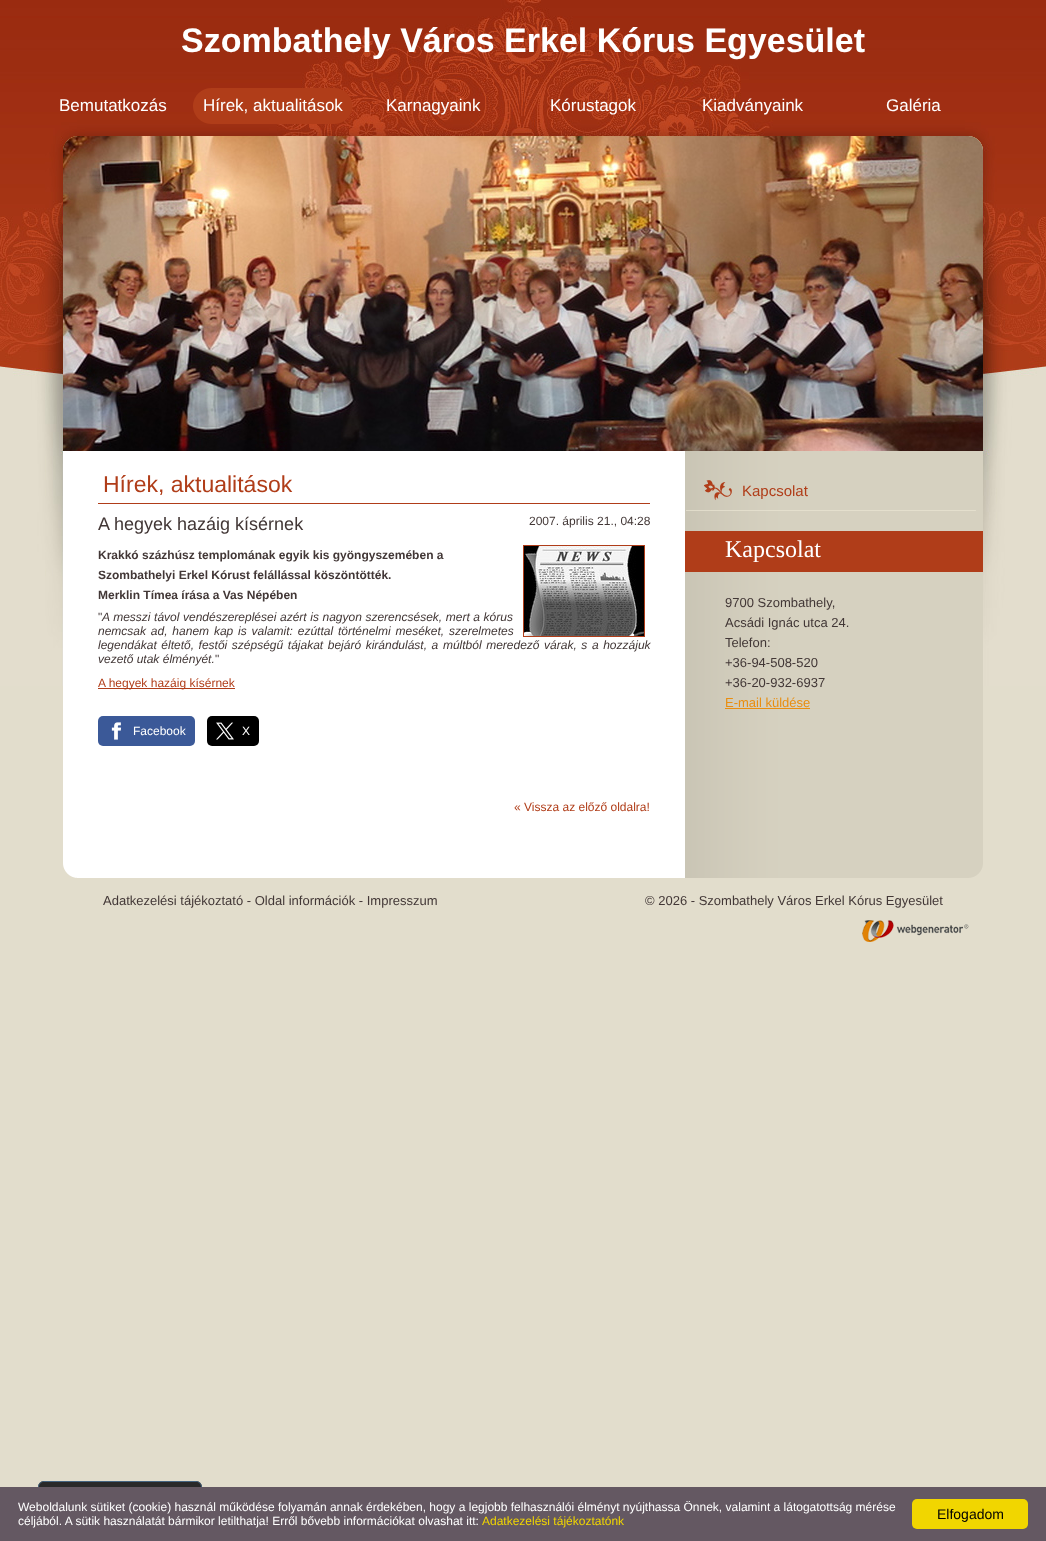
async function draw(canvas) {
  canvas.width = 1046
  canvas.height = 1541
  const ctx = canvas.getContext('2d')
  ctx.miterLimit = 4
  ctx.fontKerning = 'normal'
  async function loadImage(src) {
    const img = new Image()
    img.src = src
    await img.decode()
    return img
  }

  ctx.fillStyle = '#e2ddcc'
  ctx.fillRect(0, 0, 1046, 1541)
  ctx.drawImage(await loadImage('image0.png'), 0, 0, 1046, 686)
  ctx.font = 'bold 34px Liberation Sans'
  ctx.fillStyle = '#fff'
  ctx.fillText('Szombathely Város Erkel Kórus Egyesület', 181, 52)
  ctx.font = '17px Liberation Sans'
  ctx.fillText('Bemutatkozás', 59, 111)
  ctx.drawImage(await loadImage('image1.png'), 193, 88, 160, 36)
  ctx.fillText('Hírek, aktualitások', 203, 111)
  ctx.fillText('Karnagyaink', 386, 111)
  ctx.fillText('Kórustagok', 550, 111)
  ctx.fillText('Kiadványaink', 702, 111)
  ctx.fillText('Galéria', 886, 111)
  ctx.drawImage(await loadImage('image2.png'), 63, 136, 920, 315)
  ctx.drawImage(await loadImage('image3.png'), 63, 136, 920, 14)
  ctx.drawImage(await loadImage('image4.png'), 63, 451, 920, 410)
  ctx.fillStyle = '#b03d19'
  ctx.fillRect(98, 503, 552, 1)
  ctx.font = '23px Liberation Sans'
  ctx.fillText('Hírek, aktualitások', 103, 492)
  ctx.font = '18px Liberation Sans'
  ctx.fillStyle = '#423736'
  ctx.fillText('A hegyek hazáig kísérnek', 98, 530)
  ctx.font = '12px Liberation Sans'
  ctx.fillText('2007. április 21., 04:28', 529, 525)
  ctx.font = 'bold 12px Liberation Sans'
  ctx.fillText('Krakkó százhúsz templomának egyik kis gyöngyszemében a', 98, 559)
  ctx.fillText('Szombathelyi Erkel Kórust felállással köszöntötték.', 98, 579)
  ctx.fillText('Merklin Tímea írása a Vas Népében', 98, 599)
  ctx.strokeStyle = '#b03d19'
  ctx.strokeRect(523.5, 545.5, 121, 91)
  ctx.drawImage(await loadImage('image5.png'), 524, 546, 120, 90)
  ctx.font = '12px Liberation Sans'
  ctx.fillText('"', 98, 621)
  ctx.wordSpacing = '0.25px'
  ctx.font = 'italic 12px Liberation Sans'
  ctx.fillText('A messzi távol vendészereplései azért is nagyon szerencsések, mert a kórus', 102, 621)
  ctx.wordSpacing = '1.5px'
  ctx.fillText('nemcsak ad, hanem kap is valamit: ezúttal történelmi meséket, szerelmetes', 98, 635)
  ctx.wordSpacing = '1.25px'
  ctx.fillText('legendákat éltető, festői szépségű tájakat bejáró kirándulást, a múltból meredező várak, s a hozzájuk', 98, 649)
  ctx.wordSpacing = '0px'
  ctx.fillText('vezető utak élményét.', 98, 663)
  ctx.font = '12px Liberation Sans'
  ctx.fillText('"', 215, 663)
  ctx.fillStyle = '#b03d19'
  ctx.fillRect(98, 688, 137, 1)
  ctx.fillText('A hegyek hazáig kísérnek', 98, 687)
  ctx.fillStyle = '#3b5998'
  ctx.beginPath()
  ctx.roundRect(98, 716, 97, 30, 5)
  ctx.fill()
  ctx.drawImage(await loadImage('image6.png'), 111, 722, 11, 18)
  ctx.fillStyle = '#fff'
  ctx.fillText('Facebook', 133, 735)
  ctx.fillStyle = '#000'
  ctx.beginPath()
  ctx.roundRect(207, 716, 52, 30, 5)
  ctx.fill()
  ctx.drawImage(await loadImage('image7.png'), 216, 722, 18, 18)
  ctx.fillStyle = '#fff'
  ctx.fillText('X', 242, 735)
  ctx.fillStyle = '#b03d19'
  ctx.fillText('« Vissza az előző oldalra!', 514, 811)
  ctx.drawImage(await loadImage('image8.png'), 686, 480, 290, 31)
  ctx.font = '15px Liberation Sans'
  ctx.fillText('Kapcsolat', 742, 496)
  ctx.fillRect(685, 531, 298, 41)
  ctx.font = '24px Liberation Serif'
  ctx.fillStyle = '#fff'
  ctx.fillText('Kapcsolat', 725, 557)
  ctx.font = '13px Liberation Sans'
  ctx.fillStyle = '#423736'
  ctx.fillText('9700 Szombathely,', 725, 607)
  ctx.fillText('Acsádi Ignác utca 24.', 725, 627)
  ctx.fillText('Telefon:', 725, 647)
  ctx.fillText('+36-94-508-520', 725, 667)
  ctx.fillText('+36-20-932-6937', 725, 687)
  ctx.fillStyle = '#e98e10'
  ctx.fillText('E-mail küldése', 725, 707)
  ctx.fillRect(725, 708, 85, 1)
  ctx.drawImage(await loadImage('image9.png'), 63, 861, 920, 17)
  ctx.fillStyle = '#423736'
  ctx.fillText('Adatkezelési tájékoztató - Oldal információk - Impresszum', 103, 905)
  ctx.fillText('© 2026 - Szombathely Város Erkel Kórus Egyesület', 645, 905)
  ctx.drawImage(await loadImage('image10.png'), 862, 920, 107, 22)
  ctx.fillStyle = '#292929'
  ctx.beginPath()
  ctx.roundRect(38, 1481, 164, 21, [6, 6, 0, 0])
  ctx.fill()
  ctx.fillStyle = '#43637f'
  ctx.beginPath()
  ctx.moveTo(44, 1481)
  ctx.lineTo(196, 1481)
  ctx.bezierCurveTo(199, 1481, 202, 1484, 202, 1487)
  ctx.lineTo(202, 1502)
  ctx.lineTo(38, 1502)
  ctx.lineTo(38, 1487)
  ctx.bezierCurveTo(38, 1484, 41, 1481, 44, 1481)
  ctx.closePath()
  ctx.moveTo(44, 1482)
  ctx.lineTo(196, 1482)
  ctx.bezierCurveTo(199, 1482, 201, 1484, 201, 1487)
  ctx.lineTo(201, 1502)
  ctx.lineTo(39, 1502)
  ctx.lineTo(39, 1487)
  ctx.bezierCurveTo(39, 1484, 41, 1482, 44, 1482)
  ctx.closePath()
  ctx.fill('evenodd')
  ctx.fillStyle = '#645862'
  ctx.fillRect(0, 1487, 1046, 54)
  ctx.font = '12px Liberation Sans'
  ctx.fillStyle = '#fff'
  ctx.fillText('Weboldalunk sütiket (cookie) használ működése folyamán annak érdekében, hogy a legjobb felhasználói élményt nyújthassa Önnek, valamint a látogatottság mérése', 18, 1511)
  ctx.fillText('céljából. A sütik használatát bármikor letilthatja! Erről bővebb információkat olvashat itt:', 18, 1525)
  ctx.fillStyle = '#f1d600'
  ctx.fillText('Adatkezelési tájékoztatónk', 482, 1525)
  ctx.beginPath()
  ctx.roundRect(912, 1499, 116, 30, 5)
  ctx.fill()
  ctx.font = '14px Liberation Sans'
  ctx.fillStyle = '#000'
  ctx.fillText('Elfogadom', 937, 1519)
}

draw(document.querySelector('canvas'))
